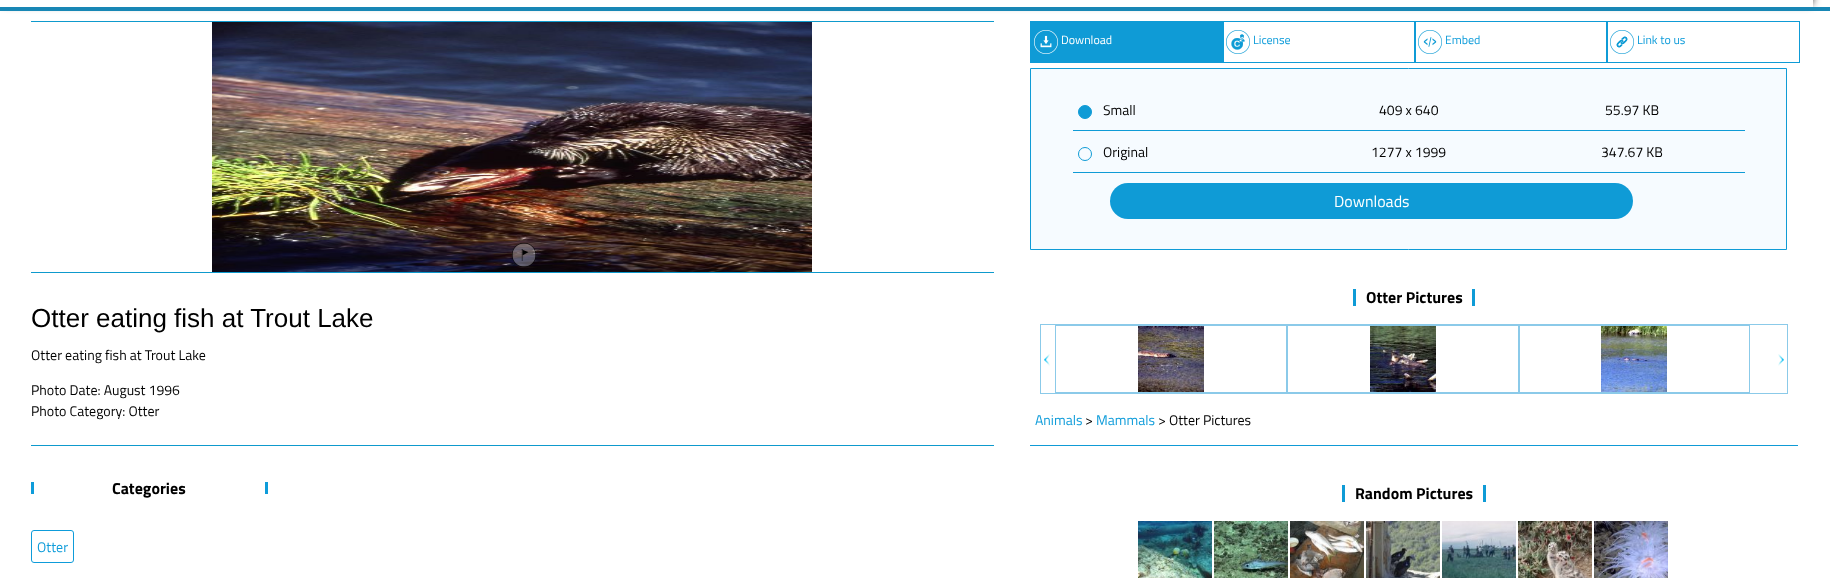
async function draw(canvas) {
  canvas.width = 1830
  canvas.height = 578
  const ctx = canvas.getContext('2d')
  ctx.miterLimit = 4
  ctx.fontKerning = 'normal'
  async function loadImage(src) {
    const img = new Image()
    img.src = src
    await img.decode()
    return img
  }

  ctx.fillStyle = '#fff'
  ctx.fillRect(0, 0, 1830, 578)
  ctx.save()
  ctx.beginPath()
  ctx.moveTo(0, 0)
  ctx.lineTo(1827, 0)
  ctx.lineTo(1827, 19)
  ctx.lineTo(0, 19)
  ctx.closePath()
  ctx.moveTo(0, -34)
  ctx.lineTo(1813, -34)
  ctx.lineTo(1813, 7)
  ctx.lineTo(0, 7)
  ctx.closePath()
  ctx.clip('evenodd')
  ctx.fillStyle = '#000'
  ctx.filter = 'blur(4.5px)'
  ctx.beginPath()
  ctx.rect(3, -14, 1809, 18)
  ctx.fill()
  ctx.filter = 'none'
  ctx.restore()
  ctx.fillStyle = '#1887b5'
  ctx.fillRect(0, 7, 1830, 4)
  ctx.fillStyle = '#0e9acd'
  ctx.fillRect(31, 21, 963, 1)
  ctx.fillRect(31, 272, 963, 1)
  ctx.drawImage(await loadImage('image0.png'), 212, 22, 600, 250)
  ctx.drawImage(await loadImage('image1.png'), 512, 243, 24, 24)
  ctx.font = '26px Liberation Sans'
  ctx.fillStyle = '#000'
  ctx.fillText('Otter eating fish at Trout Lake', 31, 327)
  ctx.fillStyle = '#0e9acd'
  ctx.fillRect(31, 445, 963, 1)
  ctx.font = '14px Titillium Web'
  ctx.fillStyle = '#000'
  ctx.fillText('Otter eating fish at Trout Lake', 31, 360)
  ctx.fillText('Photo Date: August 1996', 31, 395)
  ctx.fillText('Photo Category: Otter', 31, 416)
  ctx.fillStyle = '#0e9cda'
  ctx.fillRect(265, 482, 3, 12)
  ctx.fillRect(31, 482, 3, 12)
  ctx.font = 'bold 16px Titillium Web'
  ctx.fillStyle = '#000'
  ctx.fillText('Categories', 112, 494)
  ctx.beginPath()
  ctx.roundRect(31.5, 530.5, 42, 32, 2.5)
  ctx.strokeStyle = '#0e9cda'
  ctx.stroke()
  ctx.font = '14px Titillium Web'
  ctx.fillStyle = '#0e9cda'
  ctx.fillText('Otter', 37, 552)
  ctx.strokeStyle = '#0f9bd6'
  ctx.strokeRect(1222.5, 21.5, 193, 41)
  ctx.fillStyle = '#0f9bd6'
  ctx.fillRect(1030, 21, 194, 42)
  ctx.drawImage(await loadImage('image2.png'), 1034, 30, 24, 24)
  ctx.font = '12px Titillium Web'
  ctx.fillStyle = '#fff'
  ctx.fillText('Download', 1061, 44)
  ctx.drawImage(await loadImage('image3.png'), 1226, 30, 24, 24)
  ctx.fillStyle = '#0e9cda'
  ctx.fillText('License', 1253, 44)
  ctx.strokeRect(1414.5, 21.5, 193, 41)
  ctx.drawImage(await loadImage('image4.png'), 1418, 30, 24, 24)
  ctx.fillText('Embed', 1445, 44)
  ctx.strokeRect(1606.5, 21.5, 193, 41)
  ctx.drawImage(await loadImage('image5.png'), 1610, 30, 24, 24)
  ctx.fillText('Link to us', 1637, 44)
  ctx.fillStyle = '#f6fbff'
  ctx.beginPath()
  ctx.rect(1030.5, 68.5, 756, 181)
  ctx.fill()
  ctx.stroke()
  ctx.fillStyle = '#0f9bd6'
  ctx.fillRect(1073, 130, 672, 1)
  ctx.beginPath()
  ctx.arc(1085, 112, 6.5, 0, 2 * Math.PI)
  ctx.fill()
  ctx.stroke()
  ctx.font = '14px Titillium Web'
  ctx.fillStyle = '#000'
  ctx.fillText('Small', 1103, 115)
  ctx.fillText('409 x 640', 1379, 115)
  ctx.fillText('55.97 KB', 1605, 115)
  ctx.fillStyle = '#0f9bd6'
  ctx.fillRect(1073, 172, 672, 1)
  ctx.beginPath()
  ctx.arc(1085, 154, 6.5, 0, 2 * Math.PI)
  ctx.stroke()
  ctx.fillStyle = '#000'
  ctx.fillText('Original', 1103, 157)
  ctx.fillText('1277 x 1999', 1371, 157)
  ctx.fillText('347.67 KB', 1601, 157)
  ctx.fillStyle = '#0f9bd6'
  ctx.beginPath()
  ctx.roundRect(1110, 183, 523, 36, 18)
  ctx.fill()
  ctx.font = '16px Titillium Web'
  ctx.fillStyle = '#fff'
  ctx.fillText('Downloads', 1334, 207)
  ctx.fillStyle = '#0f9bd6'
  ctx.fillRect(1030, 445, 768, 1)
  ctx.font = 'bold 16px Titillium Web'
  ctx.fillStyle = '#000'
  ctx.fillText('Otter Pictures', 1366, 303)
  ctx.fillStyle = '#0f9bd6'
  ctx.fillRect(1472, 289, 3, 17)
  ctx.fillRect(1353, 289, 3, 17)
  ctx.strokeStyle = '#8bcae9'
  ctx.strokeRect(1040.5, 324.5, 747, 69)
  ctx.drawImage(await loadImage('image6.png'), 1044, 354, 6, 12)
  ctx.strokeRect(1055.5, 325.5, 231, 67)
  ctx.drawImage(await loadImage('image7.png'), 1138, 326, 66, 66)
  ctx.strokeRect(1287.5, 325.5, 231, 67)
  ctx.drawImage(await loadImage('image8.png'), 1370, 326, 66, 66)
  ctx.strokeRect(1519.5, 325.5, 230, 67)
  ctx.drawImage(await loadImage('image9.png'), 1601, 326, 66, 66)
  ctx.drawImage(await loadImage('image10.png'), 1778, 354, 6, 12)
  ctx.font = '14px Titillium Web'
  ctx.fillStyle = '#0e9cda'
  ctx.fillText('Animals', 1035, 425)
  ctx.fillStyle = '#000'
  ctx.fillText('>', 1085, 425)
  ctx.fillStyle = '#0e9cda'
  ctx.fillText('Mammals', 1096, 425)
  ctx.fillStyle = '#000'
  ctx.fillText('> Otter Pictures', 1158, 425)
  ctx.font = 'bold 16px Titillium Web'
  ctx.fillText('Random Pictures', 1355, 499)
  ctx.fillStyle = '#0f9bd6'
  ctx.fillRect(1483, 485, 3, 17)
  ctx.fillRect(1342, 485, 3, 17)
  ctx.drawImage(await loadImage('image11.png'), 1138, 521, 74, 57)
  ctx.drawImage(await loadImage('image12.png'), 1214, 521, 74, 57)
  ctx.drawImage(await loadImage('image13.png'), 1290, 521, 74, 57)
  ctx.drawImage(await loadImage('image14.png'), 1366, 521, 74, 57)
  ctx.drawImage(await loadImage('image15.png'), 1442, 521, 74, 57)
  ctx.drawImage(await loadImage('image16.png'), 1518, 521, 74, 57)
  ctx.drawImage(await loadImage('image17.png'), 1594, 521, 74, 57)
}

draw(document.querySelector('canvas'))
